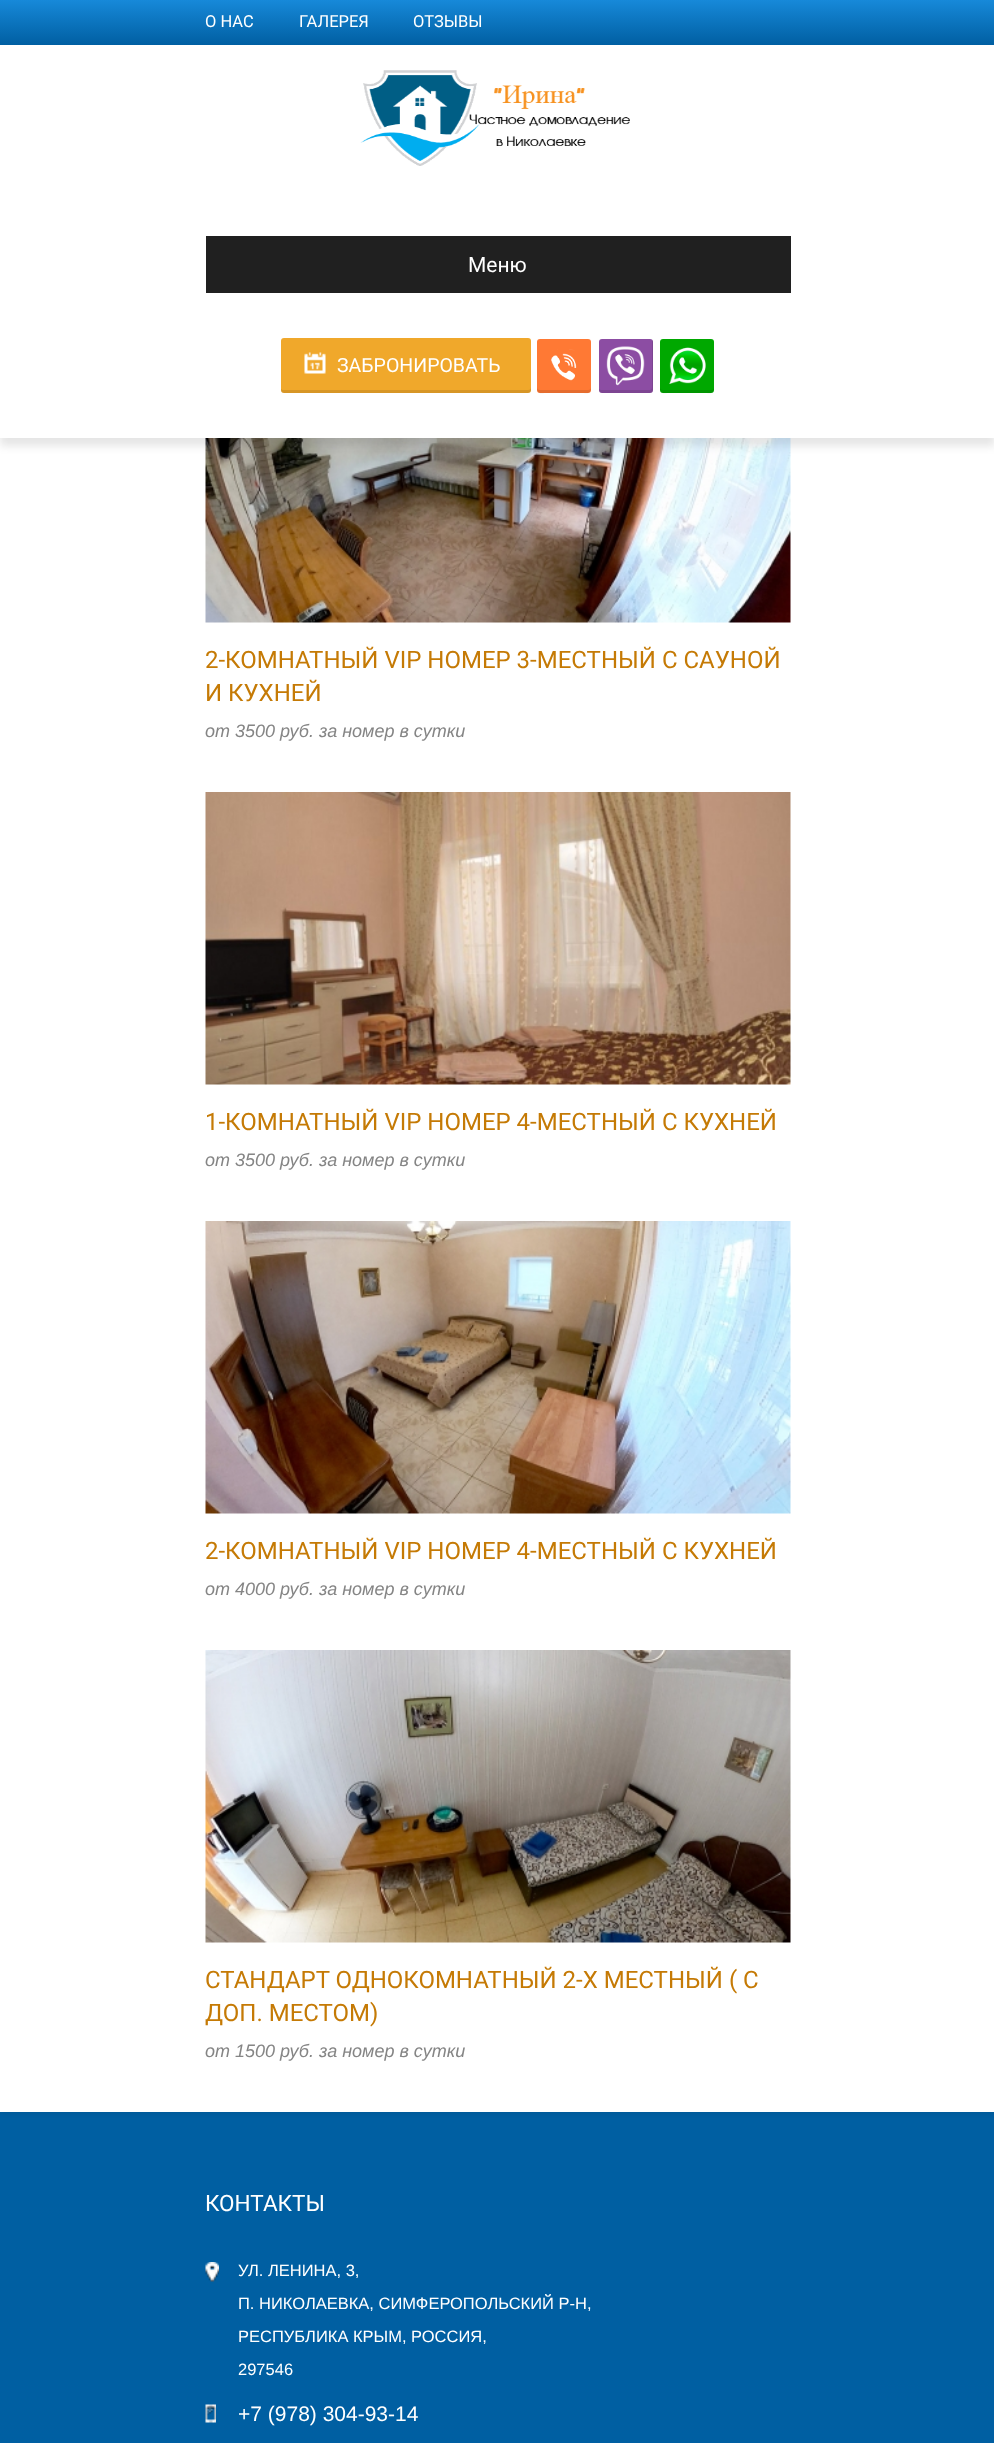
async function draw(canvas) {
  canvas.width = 994
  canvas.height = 2443
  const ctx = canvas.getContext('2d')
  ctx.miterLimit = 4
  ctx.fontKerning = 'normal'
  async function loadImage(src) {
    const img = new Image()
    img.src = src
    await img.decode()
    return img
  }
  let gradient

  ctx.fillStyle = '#005fa2'
  ctx.fillRect(0, 0, 994, 2443)
  ctx.fillStyle = '#0000001a'
  ctx.filter = 'blur(3px)'
  ctx.beginPath()
  ctx.rect(0, -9, 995, 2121)
  ctx.fill()
  ctx.filter = 'none'
  gradient = ctx.createLinearGradient(497, 0, 497, 45)
  gradient.addColorStop(0, '#1789d9')
  gradient.addColorStop(1, '#005fa2')
  ctx.fillStyle = gradient
  ctx.fillRect(0, 0, 994, 45)
  ctx.font = '16.5px Roboto'
  ctx.fillStyle = '#fff'
  ctx.fillText('О НАС', 205, 27)
  ctx.fillText('ГАЛЕРЕЯ', 299, 27)
  ctx.fillText('ОТЗЫВЫ', 413, 27)
  ctx.fillRect(0, 438, 994, 1674)
  ctx.drawImage(await loadImage('image5.png'), 205, 438, 586, 185)
  ctx.fillStyle = '#0000001a'
  ctx.filter = 'blur(4px)'
  ctx.beginPath()
  ctx.rect(0, 53, 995, 393)
  ctx.fill()
  ctx.filter = 'none'
  ctx.fillStyle = '#fff'
  ctx.fillRect(0, 45, 994, 393)
  ctx.drawImage(await loadImage('image0.png'), 360, 70, 270, 96)
  ctx.fillStyle = '#202020'
  ctx.fillRect(206, 236, 585, 57)
  ctx.font = '21px Roboto'
  ctx.fillStyle = '#fff'
  ctx.fillText('Меню', 468, 272)
  ctx.fillStyle = '#f0a82b'
  ctx.beginPath()
  ctx.roundRect(281, 338, 250, 55, 3)
  ctx.fill()
  ctx.drawImage(await loadImage('image1.png'), 304, 352, 22, 22)
  ctx.fillStyle = '#0000001a'
  ctx.beginPath()
  ctx.moveTo(281, 389)
  ctx.lineTo(281, 390)
  ctx.bezierCurveTo(281, 392, 282, 393, 284, 393)
  ctx.lineTo(528, 393)
  ctx.bezierCurveTo(530, 393, 531, 392, 531, 390)
  ctx.lineTo(531, 387)
  ctx.bezierCurveTo(531, 389, 530, 390, 528, 390)
  ctx.lineTo(284, 390)
  ctx.bezierCurveTo(283, 390, 282, 390, 281, 389)
  ctx.closePath()
  ctx.fill()
  ctx.font = '19.5px Roboto'
  ctx.fillStyle = '#fff'
  ctx.fillText('ЗАБРОНИРОВАТЬ', 337, 372)
  ctx.fillStyle = '#ff7934'
  ctx.beginPath()
  ctx.roundRect(537, 339, 54, 54, 3)
  ctx.fill()
  ctx.fillStyle = '#0000001a'
  ctx.beginPath()
  ctx.moveTo(537, 387)
  ctx.bezierCurveTo(537, 395, 540, 393, 548, 393)
  ctx.lineTo(580, 393)
  ctx.bezierCurveTo(588, 393, 591, 395, 591, 387)
  ctx.bezierCurveTo(591, 389, 590, 390, 588, 390)
  ctx.lineTo(540, 390)
  ctx.bezierCurveTo(538, 390, 537, 389, 537, 387)
  ctx.closePath()
  ctx.fill()
  ctx.drawImage(await loadImage('image2.png'), 551, 349, 26, 32)
  ctx.fillStyle = '#8c4da3'
  ctx.beginPath()
  ctx.roundRect(599, 339, 54, 54, 3)
  ctx.fill()
  ctx.fillStyle = '#0000001a'
  ctx.beginPath()
  ctx.moveTo(599, 389)
  ctx.lineTo(599, 390)
  ctx.bezierCurveTo(599, 392, 600, 393, 602, 393)
  ctx.lineTo(650, 393)
  ctx.bezierCurveTo(652, 393, 653, 392, 653, 390)
  ctx.lineTo(653, 342)
  ctx.bezierCurveTo(653, 341, 653, 340, 652, 340)
  ctx.lineTo(652, 387)
  ctx.bezierCurveTo(652, 389, 651, 390, 650, 390)
  ctx.lineTo(602, 390)
  ctx.bezierCurveTo(601, 390, 600, 390, 599, 389)
  ctx.closePath()
  ctx.fill()
  ctx.drawImage(await loadImage('image3.png'), 606, 346, 39, 40)
  ctx.fillStyle = '#00a800'
  ctx.beginPath()
  ctx.roundRect(660, 339, 54, 54, 3)
  ctx.fill()
  ctx.fillStyle = '#0000001a'
  ctx.beginPath()
  ctx.moveTo(660, 387)
  ctx.bezierCurveTo(660, 395, 663, 393, 671, 393)
  ctx.lineTo(703, 393)
  ctx.bezierCurveTo(711, 393, 714, 395, 714, 387)
  ctx.bezierCurveTo(714, 389, 713, 390, 711, 390)
  ctx.lineTo(663, 390)
  ctx.bezierCurveTo(661, 390, 660, 389, 660, 387)
  ctx.closePath()
  ctx.fill()
  ctx.drawImage(await loadImage('image4.png'), 669, 347, 37, 37)
  ctx.font = '24px Roboto'
  ctx.fillStyle = '#c57a05'
  ctx.fillText('2-КОМНАТНЫЙ VIP НОМЕР 3-МЕСТНЫЙ С САУНОЙ', 205, 668)
  ctx.fillText('И КУХНЕЙ', 205, 701)
  ctx.font = 'italic 18px Liberation Sans'
  ctx.fillStyle = '#858585'
  ctx.fillText('от 3500 руб. за номер в сутки', 205, 737)
  ctx.drawImage(await loadImage('image6.png'), 205, 792, 586, 293)
  ctx.font = '24px Roboto'
  ctx.fillStyle = '#c57a05'
  ctx.fillText('1-КОМНАТНЫЙ VIP НОМЕР 4-МЕСТНЫЙ С КУХНЕЙ', 205, 1130)
  ctx.font = 'italic 18px Liberation Sans'
  ctx.fillStyle = '#858585'
  ctx.fillText('от 3500 руб. за номер в сутки', 205, 1166)
  ctx.drawImage(await loadImage('image7.png'), 205, 1221, 586, 293)
  ctx.font = '24px Roboto'
  ctx.fillStyle = '#c57a05'
  ctx.fillText('2-КОМНАТНЫЙ VIP НОМЕР 4-МЕСТНЫЙ С КУХНЕЙ', 205, 1559)
  ctx.font = 'italic 18px Liberation Sans'
  ctx.fillStyle = '#858585'
  ctx.fillText('от 4000 руб. за номер в сутки', 205, 1595)
  ctx.drawImage(await loadImage('image8.png'), 205, 1650, 586, 293)
  ctx.font = '24px Roboto'
  ctx.fillStyle = '#c57a05'
  ctx.fillText('СТАНДАРТ ОДНОКОМНАТНЫЙ 2-Х МЕСТНЫЙ ( С', 205, 1988)
  ctx.fillText('ДОП. МЕСТОМ)', 205, 2021)
  ctx.font = 'italic 18px Liberation Sans'
  ctx.fillStyle = '#858585'
  ctx.fillText('от 1500 руб. за номер в сутки', 205, 2057)
  ctx.font = '22.5px Roboto'
  ctx.fillStyle = '#fff'
  ctx.fillText('КОНТАКТЫ', 205, 2211)
  ctx.drawImage(await loadImage('image9.png'), 205, 2262, 14, 20)
  ctx.font = '16.5px Liberation Sans'
  ctx.fillText('УЛ. ЛЕНИНА, 3,', 238, 2276)
  ctx.fillText('П. НИКОЛАЕВКА, СИМФЕРОПОЛЬСКИЙ Р-Н,', 238, 2309)
  ctx.fillText('РЕСПУБЛИКА КРЫМ, РОССИЯ,', 238, 2342)
  ctx.fillText('297546', 238, 2375)
  ctx.drawImage(await loadImage('image10.png'), 205, 2404, 11, 19)
  ctx.font = '21px Liberation Sans'
  ctx.fillText('+7 (978) 304-93-14', 238, 2421)
}

draw(document.querySelector('canvas'))
